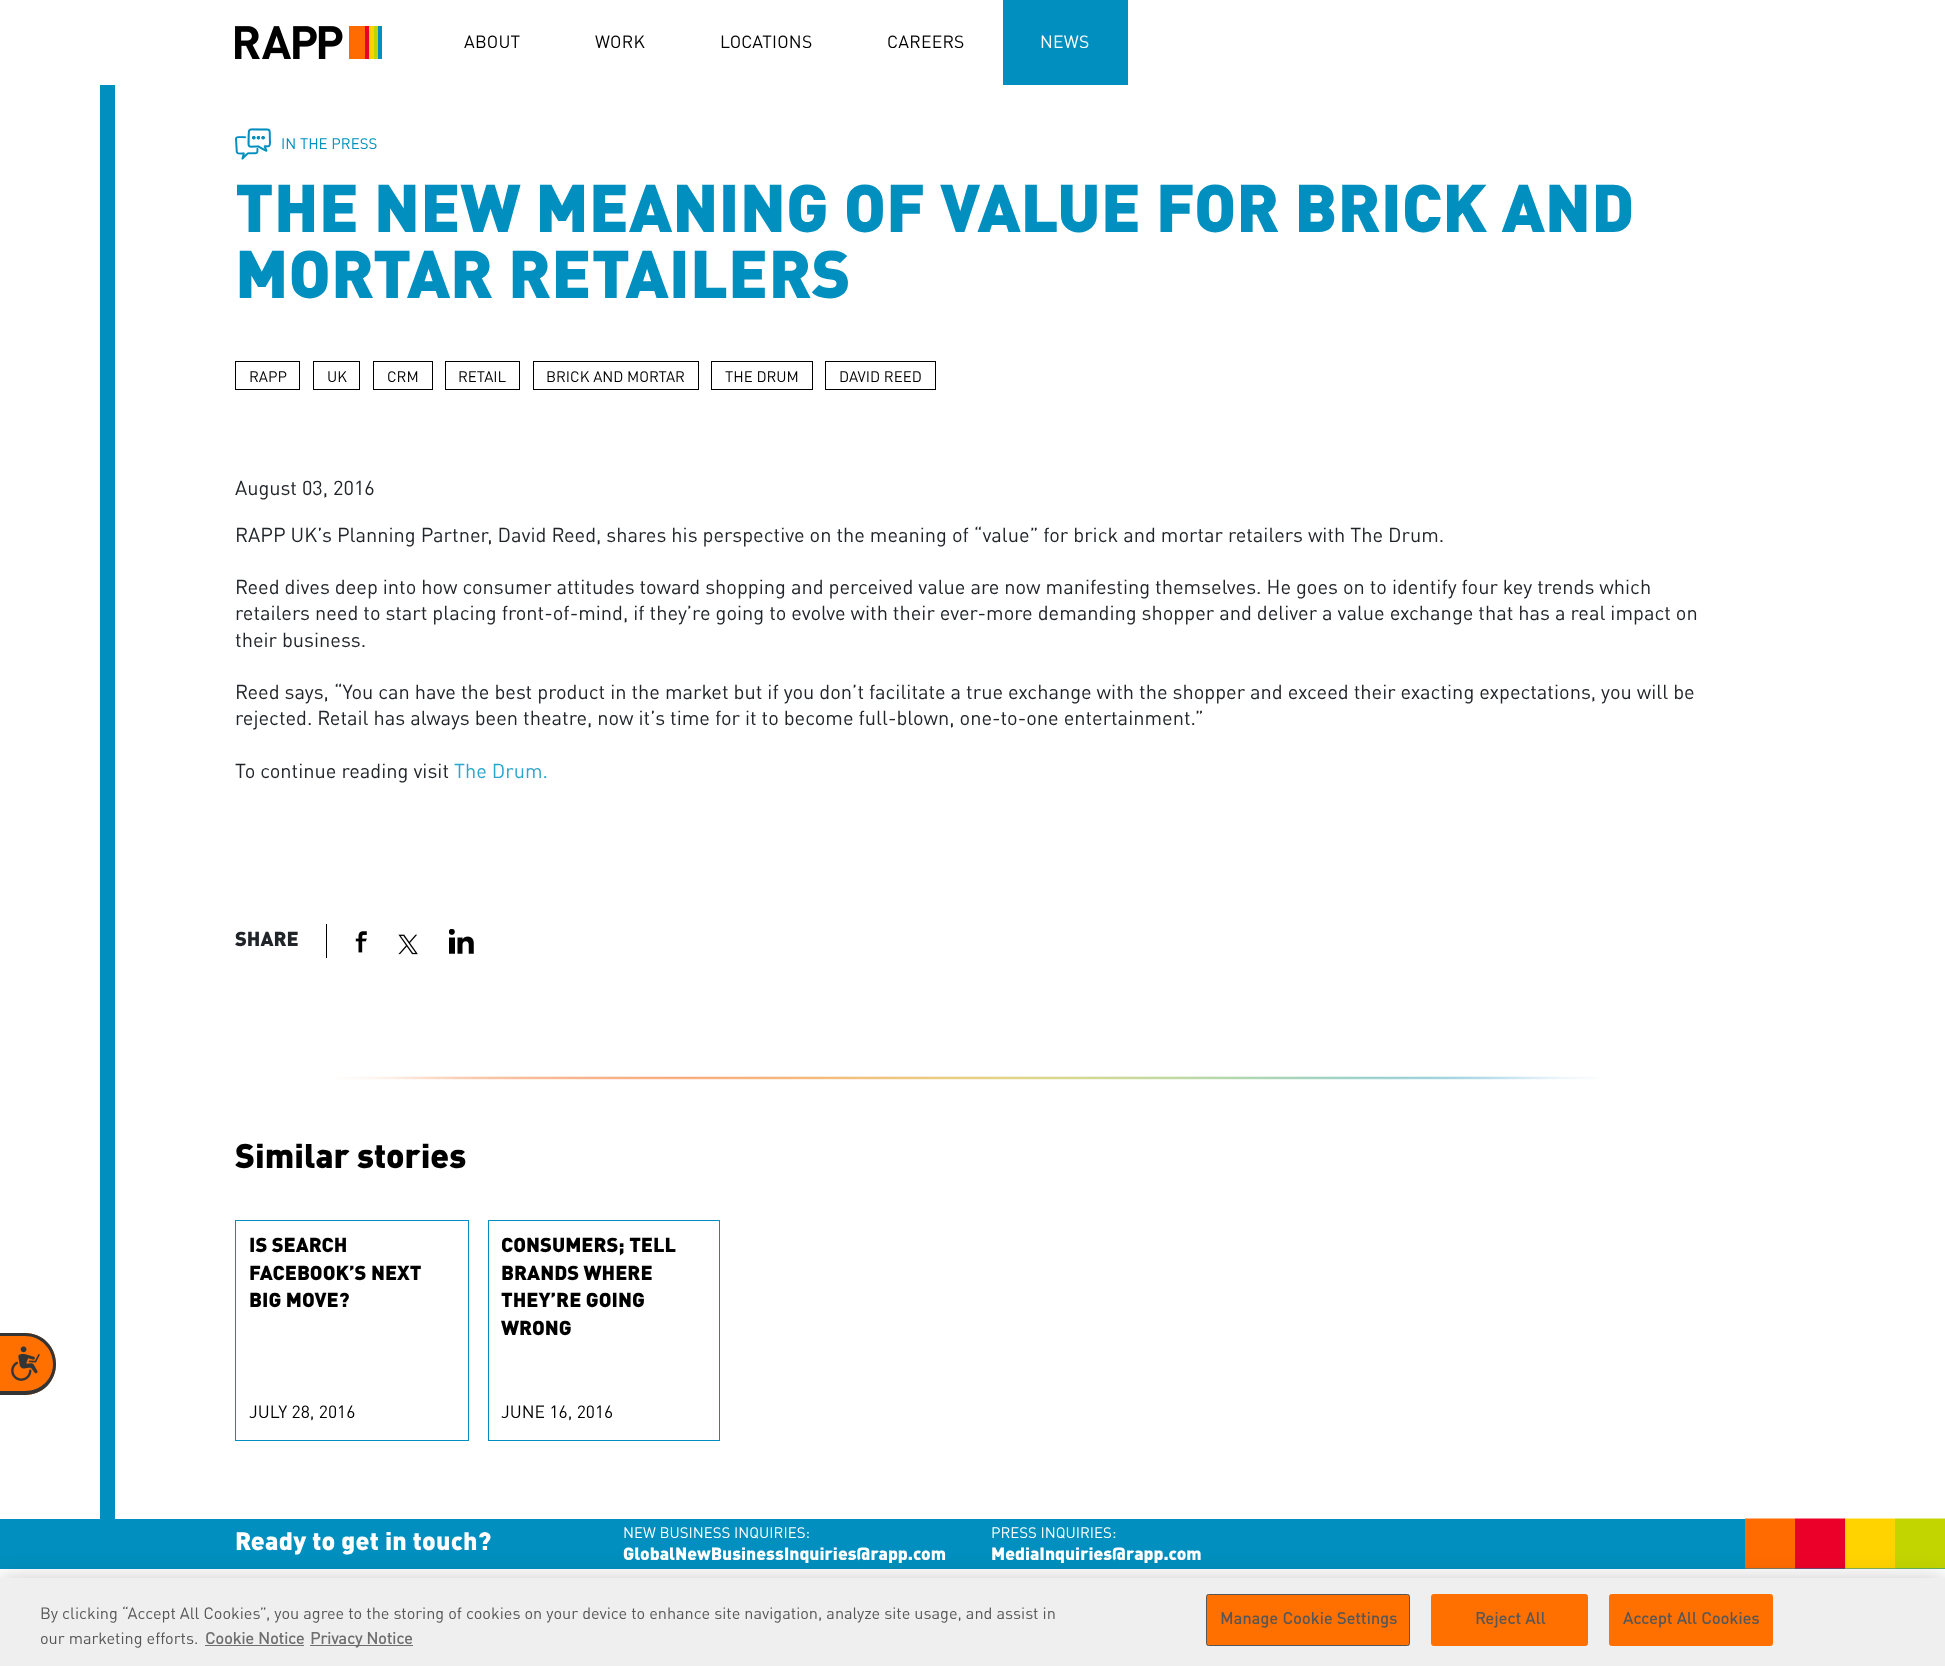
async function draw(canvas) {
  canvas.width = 1945
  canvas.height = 1666
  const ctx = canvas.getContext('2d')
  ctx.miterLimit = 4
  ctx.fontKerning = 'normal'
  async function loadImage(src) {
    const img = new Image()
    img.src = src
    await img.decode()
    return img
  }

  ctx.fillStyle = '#fff'
  ctx.fillRect(0, 0, 1945, 1666)
  ctx.fillStyle = '#ff7000'
  ctx.beginPath()
  ctx.roundRect(0, 1333, 56, 62, [0, 31, 31, 0])
  ctx.fill()
  ctx.fillStyle = '#343434'
  ctx.beginPath()
  ctx.moveTo(0, 1333)
  ctx.lineTo(25, 1333)
  ctx.bezierCurveTo(43, 1333, 56, 1347, 56, 1364)
  ctx.bezierCurveTo(56, 1381, 43, 1395, 25, 1395)
  ctx.lineTo(0, 1395)
  ctx.closePath()
  ctx.moveTo(0, 1336)
  ctx.lineTo(25, 1336)
  ctx.bezierCurveTo(41, 1336, 53, 1349, 53, 1364)
  ctx.bezierCurveTo(53, 1379, 41, 1391, 25, 1391)
  ctx.lineTo(0, 1391)
  ctx.closePath()
  ctx.fill('evenodd')
  ctx.drawImage(await loadImage('image0.png'), 11, 1346, 29, 35)
  ctx.drawImage(await loadImage('image1.png'), 235, 26, 147, 33)
  ctx.letterSpacing = '0.25px'
  ctx.font = '17.5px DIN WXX'
  ctx.fillStyle = '#000'
  ctx.fillText('ABOUT', 464, 48)
  ctx.fillText('WORK', 595, 48)
  ctx.fillText('LOCATIONS', 720, 48)
  ctx.fillText('CAREERS', 887, 48)
  ctx.fillStyle = '#008fbe'
  ctx.fillRect(1003, 0, 125, 85)
  ctx.fillStyle = '#fff'
  ctx.fillText('NEWS', 1040, 48)
  ctx.fillStyle = '#008fbe'
  ctx.fillRect(100, 85, 15, 1434)
  ctx.drawImage(await loadImage('image2.png'), 235, 128, 36, 32)
  ctx.letterSpacing = '0px'
  ctx.font = '15px DIN WXX'
  ctx.fillText('IN THE PRESS', 281, 149)
  ctx.font = '900 66.25px DIN'
  ctx.fillText('THE NEW MEANING OF VALUE FOR BRICK AND', 235, 232)
  ctx.fillText('MORTAR RETAILERS', 235, 298)
  ctx.strokeStyle = '#000'
  ctx.strokeRect(235.5, 361.5, 64, 28)
  ctx.font = '15px DIN WXX'
  ctx.fillStyle = '#000'
  ctx.fillText('RAPP', 249, 382)
  ctx.strokeRect(313.5, 361.5, 46, 28)
  ctx.fillText('UK', 327, 382)
  ctx.strokeRect(373.5, 361.5, 59, 28)
  ctx.fillText('CRM', 387, 382)
  ctx.strokeRect(445.5, 361.5, 74, 28)
  ctx.fillText('RETAIL', 458, 382)
  ctx.strokeRect(533.5, 361.5, 165, 28)
  ctx.fillText('BRICK AND MORTAR', 546, 382)
  ctx.strokeRect(711.5, 361.5, 101, 28)
  ctx.fillText('THE DRUM', 725, 382)
  ctx.strokeRect(825.5, 361.5, 110, 28)
  ctx.fillText('DAVID REED', 839, 382)
  ctx.font = '20px DIN WXX'
  ctx.fillStyle = '#212529'
  ctx.fillText('August 03, 2016', 235, 495)
  ctx.fillText('RAPP UK’s Planning Partner, David Reed, shares his perspective on the meaning of “value” for brick and mortar retailers with The Drum.', 235, 542)
  ctx.fillText('Reed dives deep into how consumer attitudes toward shopping and perceived value are now manifesting themselves. He goes on to identify four key trends which', 235, 594)
  ctx.fillText('retailers need to start placing front-of-mind, if they’re going to evolve with their ever-more demanding shopper and deliver a value exchange that has a real impact on', 235, 620)
  ctx.fillText('their business.', 235, 647)
  ctx.fillText('Reed says, “You can have the best product in the market but if you don’t facilitate a true exchange with the shopper and exceed their exacting expectations, you will be', 235, 699)
  ctx.fillText('rejected. Retail has always been theatre, now it’s time for it to become full-blown, one-to-one entertainment.”', 235, 725)
  ctx.fillText('To continue reading visit', 235, 778)
  ctx.fillStyle = '#2ba6cb'
  ctx.fillText('The Drum.', 454, 778)
  ctx.font = '900 20px DIN'
  ctx.fillStyle = '#212529'
  ctx.fillText('SHARE', 235, 946)
  ctx.fillStyle = '#000'
  ctx.fillRect(326, 924, 1, 34)
  ctx.drawImage(await loadImage('image3.png'), 355, 931, 12, 22)
  ctx.drawImage(await loadImage('image4.png'), 398, 934, 20, 21)
  ctx.drawImage(await loadImage('image5.png'), 449, 929, 25, 25)
  ctx.drawImage(await loadImage('image6.png'), 337, 1076, 1262, 4)
  ctx.font = '900 33.75px DIN'
  ctx.fillText('Similar stories', 235, 1168)
  ctx.strokeStyle = '#008fbe'
  ctx.strokeRect(235.5, 1220.5, 233, 220)
  ctx.font = '900 20px DIN'
  ctx.fillText('IS SEARCH', 249, 1252)
  ctx.fillText('FACEBOOK’S NEXT', 249, 1280)
  ctx.fillText('BIG MOVE?', 249, 1307)
  ctx.font = '17.5px DIN WXX'
  ctx.fillText('JULY 28, 2016', 249, 1418)
  ctx.strokeRect(488.5, 1220.5, 231, 220)
  ctx.font = '900 20px DIN'
  ctx.fillText('CONSUMERS; TELL', 501, 1252)
  ctx.fillText('BRANDS WHERE', 501, 1280)
  ctx.fillText('THEY’RE GOING', 501, 1307)
  ctx.fillText('WRONG', 501, 1335)
  ctx.font = '17.5px DIN WXX'
  ctx.fillText('JUNE 16, 2016', 501, 1418)
  ctx.fillStyle = '#008fbe'
  ctx.fillRect(0, 1519, 1945, 50)
  ctx.letterSpacing = '0.25px'
  ctx.font = '900 25px DIN'
  ctx.fillStyle = '#fff'
  ctx.fillText('Ready to get in touch?', 235, 1550)
  ctx.letterSpacing = '0px'
  ctx.font = '15px DIN WXX'
  ctx.fillText('NEW BUSINESS INQUIRIES:', 623, 1538)
  ctx.font = '900 17.5px DIN'
  ctx.fillText('GlobalNewBusinessInquiries@rapp.com', 623, 1560)
  ctx.font = '15px DIN WXX'
  ctx.fillText('PRESS INQUIRIES:', 991, 1538)
  ctx.font = '900 17.5px DIN'
  ctx.fillText('MediaInquiries@rapp.com', 991, 1560)
  ctx.drawImage(await loadImage('image7.png'), 1745, 1518, 200, 51)
  ctx.fillStyle = '#00000033'
  ctx.filter = 'blur(11px)'
  ctx.beginPath()
  ctx.rect(0, 1578, 1945, 88)
  ctx.fill()
  ctx.filter = 'none'
  ctx.fillStyle = '#efefef'
  ctx.fillRect(0, 1578, 1945, 88)
  ctx.font = '16.25px DIN WXX'
  ctx.fillStyle = '#575757'
  ctx.fillText('By clicking “Accept All Cookies”, you agree to the storing of cookies on your device to enhance site navigation, analyze site usage, and assist in', 40, 1619)
  ctx.fillText('our marketing efforts.', 40, 1644)
  ctx.font = 'bold 16.25px DIN WXX'
  ctx.fillStyle = '#6e6e6e'
  ctx.fillText('Cookie Notice', 205, 1644)
  ctx.fillRect(205, 1645, 99, 1)
  ctx.fillRect(310, 1645, 103, 1)
  ctx.fillText('Privacy Notice', 310, 1644)
  ctx.fillStyle = '#ff7000'
  ctx.beginPath()
  ctx.roundRect(1206.5, 1594.5, 203, 51, 2)
  ctx.fill()
  ctx.strokeStyle = '#575757'
  ctx.stroke()
  ctx.letterSpacing = '0.2px'
  ctx.fillStyle = '#575757'
  ctx.fillText('Manage Cookie Settings', 1220, 1624)
  ctx.fillStyle = '#ff7000'
  ctx.beginPath()
  ctx.roundRect(1431.5, 1594.5, 156, 51, 2)
  ctx.fill()
  ctx.strokeStyle = '#ff7000'
  ctx.stroke()
  ctx.fillStyle = '#575757'
  ctx.fillText('Reject All', 1475, 1624)
  ctx.fillStyle = '#ff7000'
  ctx.beginPath()
  ctx.roundRect(1609.5, 1594.5, 163, 51, 2)
  ctx.fill()
  ctx.stroke()
  ctx.fillStyle = '#575757'
  ctx.fillText('Accept All Cookies', 1623, 1624)
}

draw(document.querySelector('canvas'))
